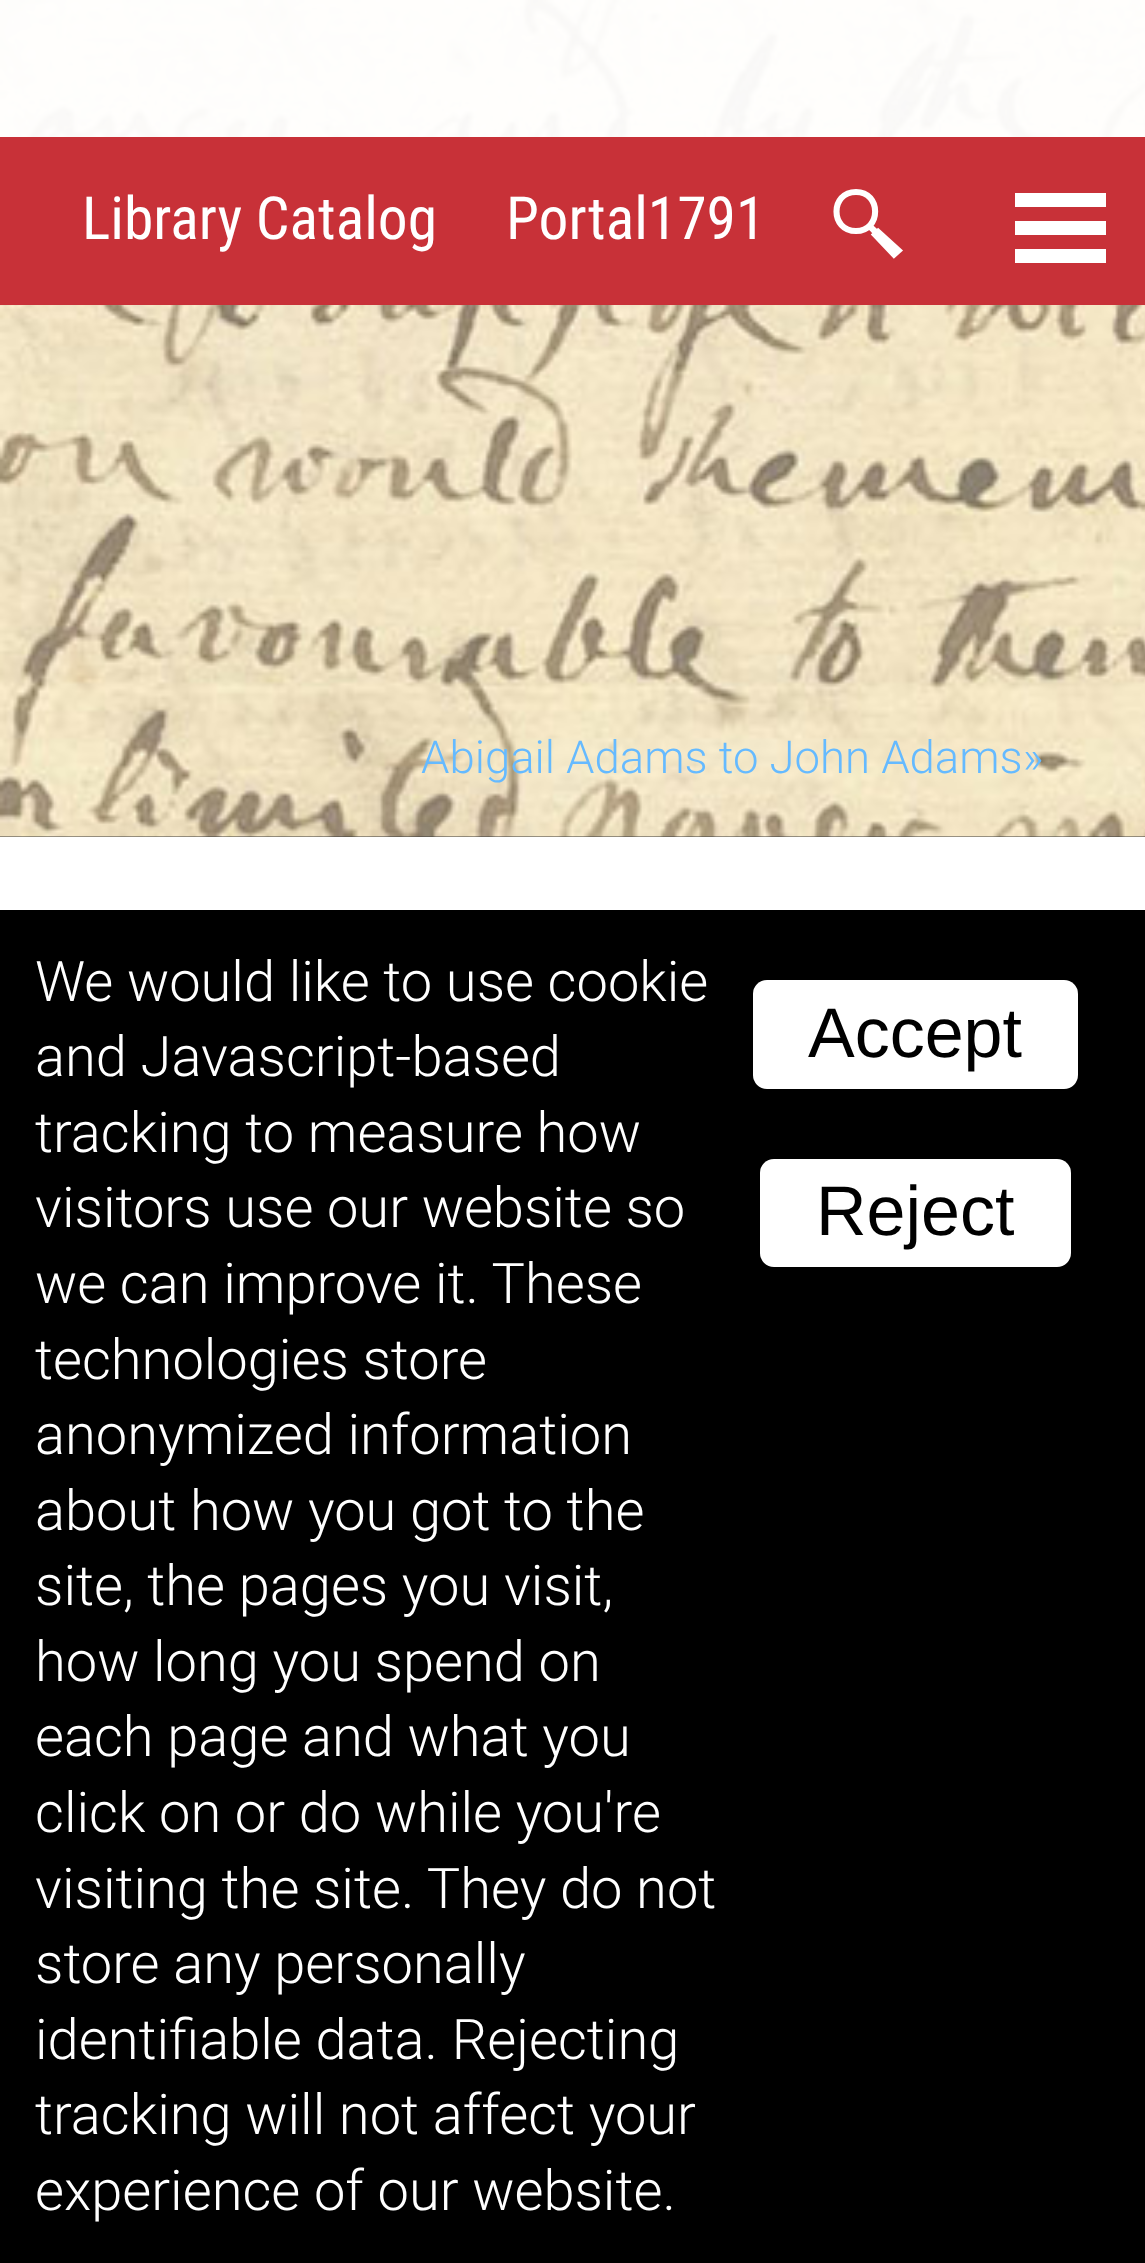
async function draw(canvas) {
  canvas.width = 1145
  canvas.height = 2263
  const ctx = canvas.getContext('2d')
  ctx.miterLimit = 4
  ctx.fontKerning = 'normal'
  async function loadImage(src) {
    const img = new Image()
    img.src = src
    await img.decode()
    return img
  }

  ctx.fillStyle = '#3a3a3a'
  ctx.fillRect(0, 0, 1145, 2263)
  ctx.drawImage(await loadImage('image0.png'), 0, 0, 1145, 837)
  ctx.fillStyle = '#ffffffcf'
  ctx.fillRect(0, 0, 1145, 137)
  ctx.fillStyle = '#ffffffb5'
  ctx.fillRect(0, 0, 1145, 137)
  ctx.fillStyle = '#c83138'
  ctx.fillRect(0, 137, 1145, 168)
  ctx.font = '59.5px Roboto Condensed'
  ctx.fillStyle = '#fff'
  ctx.fillText('Library Catalog', 82, 239)
  ctx.fillText('Portal1791', 506, 239)
  ctx.beginPath()
  ctx.moveTo(856, 192)
  ctx.bezierCurveTo(830, 192, 830, 231, 856, 231)
  ctx.bezierCurveTo(881.5, 231, 881.5, 192, 856, 192)
  ctx.closePath()
  ctx.moveTo(871, 227.5)
  ctx.lineTo(895, 253)
  ctx.lineTo(873, 232.5)
  ctx.lineTo(894, 254.5)
  ctx.lineTo(898.5, 250.5)
  ctx.lineTo(876, 230)
  ctx.lineTo(896, 251)
  ctx.closePath()
  ctx.strokeStyle = '#fff'
  ctx.lineWidth = 6.1
  ctx.lineCap = 'round'
  ctx.stroke()
  ctx.fillRect(1015, 193, 91, 14)
  ctx.fillRect(1015, 221, 91, 14)
  ctx.fillRect(1015, 249, 91, 14)
  ctx.font = '300 45.5px Roboto'
  ctx.fillStyle = '#65baff'
  ctx.fillText('Abigail Adams to John Adams»', 421, 773)
  ctx.fillStyle = '#fff'
  ctx.fillRect(0, 837, 1145, 73)
  ctx.fillStyle = '#000'
  ctx.fillRect(0, 910, 1145, 1353)
  ctx.font = '300 56px Roboto'
  ctx.fillStyle = '#fff'
  ctx.fillText('We would like to use cookie', 35, 1001)
  ctx.fillText('and Javascript-based', 35, 1076)
  ctx.fillText('tracking to measure how', 35, 1152)
  ctx.fillText('visitors use our website so', 35, 1227)
  ctx.fillText('we can improve it. These', 35, 1303)
  ctx.fillText('technologies store', 35, 1379)
  ctx.fillText('anonymized information', 35, 1454)
  ctx.fillText('about how you got to the', 35, 1530)
  ctx.fillText('site, the pages you visit,', 35, 1605)
  ctx.fillText('how long you spend on', 35, 1681)
  ctx.fillText('each page and what you', 35, 1756)
  ctx.fillText('click on or do while you\'re', 35, 1832)
  ctx.fillText('visiting the site. They do not', 35, 1908)
  ctx.fillText('store any personally', 35, 1983)
  ctx.fillText('identifiable data. Rejecting', 35, 2059)
  ctx.fillText('tracking will not affect your', 35, 2134)
  ctx.fillText('experience of our website.', 35, 2210)
  ctx.beginPath()
  ctx.roundRect(753, 980, 325, 109, 14)
  ctx.fill()
  ctx.font = '70px Liberation Sans'
  ctx.fillStyle = '#000'
  ctx.fillText('Accept', 808, 1057)
  ctx.fillStyle = '#fff'
  ctx.beginPath()
  ctx.roundRect(760, 1159, 311, 108, 14)
  ctx.fill()
  ctx.fillStyle = '#000'
  ctx.fillText('Reject', 816, 1235)
}

draw(document.querySelector('canvas'))
